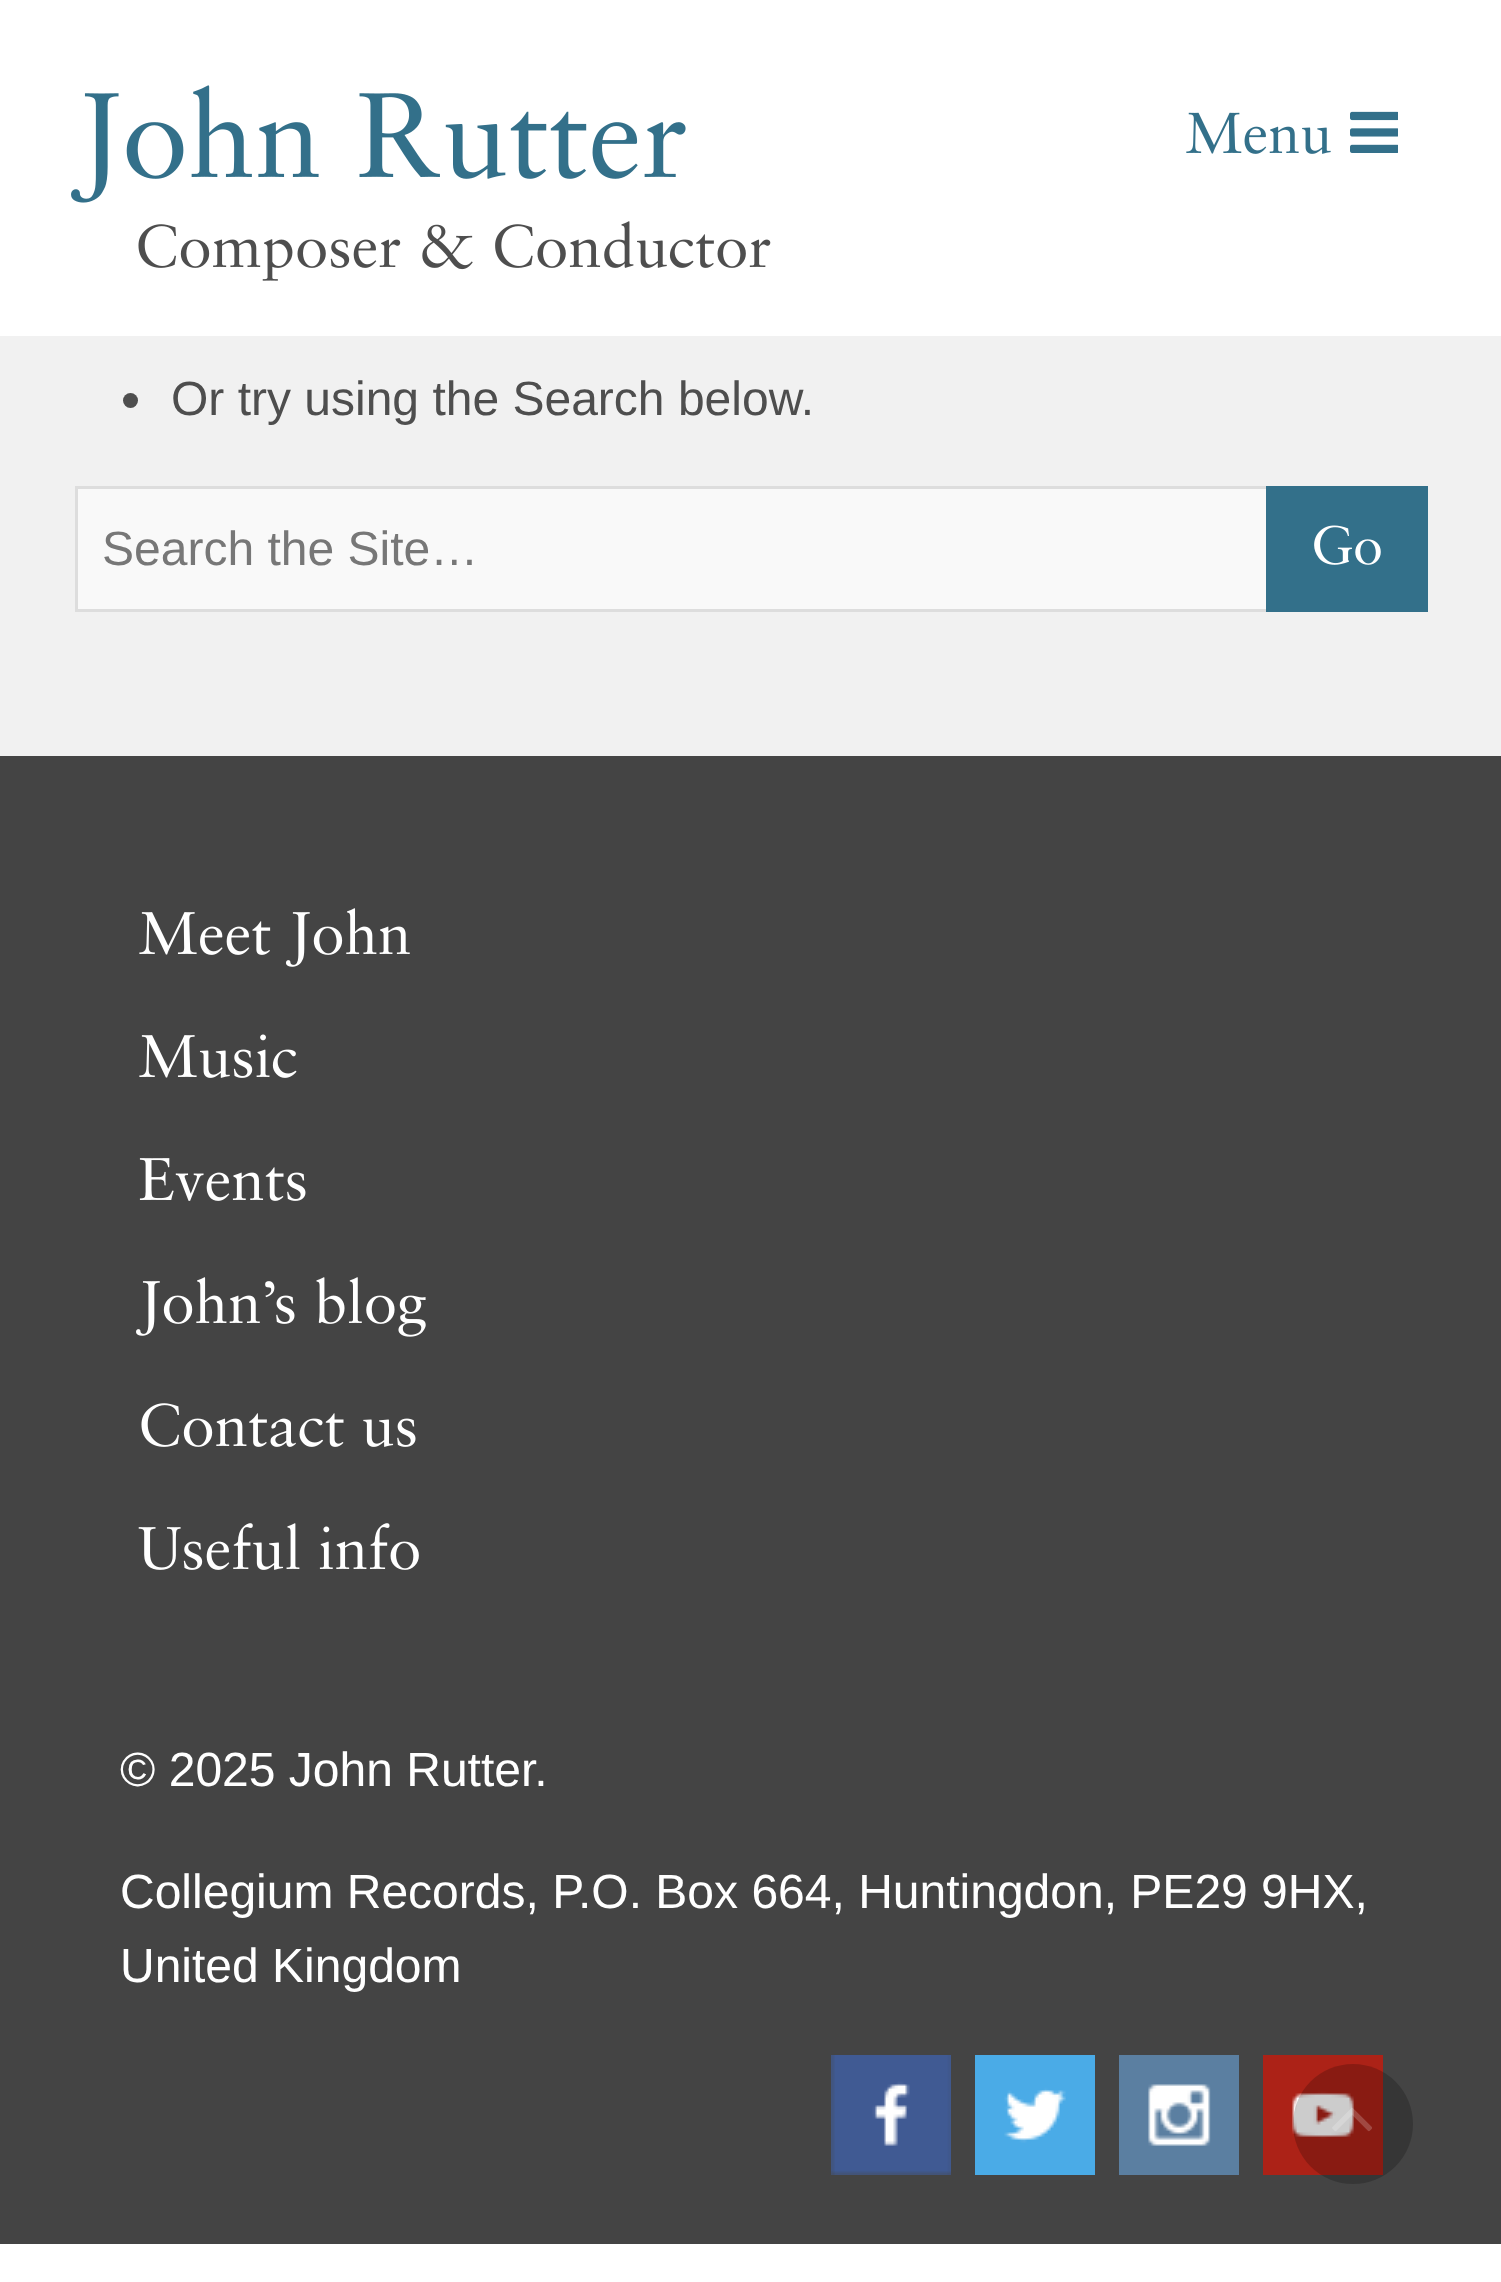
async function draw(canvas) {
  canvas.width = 1501
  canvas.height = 2282
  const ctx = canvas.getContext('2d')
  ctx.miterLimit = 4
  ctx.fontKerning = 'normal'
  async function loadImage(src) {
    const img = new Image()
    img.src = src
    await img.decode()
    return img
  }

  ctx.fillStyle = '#fff'
  ctx.fillRect(0, 0, 1501, 2282)
  ctx.drawImage(await loadImage('image0.png'), 71, 85, 615, 118)
  ctx.drawImage(await loadImage('image1.png'), 138, 221, 633, 60)
  ctx.drawImage(await loadImage('image2.png'), 1186, 112, 145, 42)
  ctx.drawImage(await loadImage('image3.png'), 1350, 111, 48, 42)
  ctx.fillStyle = '#f1f1f1'
  ctx.fillRect(0, 336, 1501, 420)
  ctx.fillStyle = '#4e4e4e'
  ctx.beginPath()
  ctx.arc(130.5, 400.5, 7.5, 0, 2 * Math.PI)
  ctx.fill()
  ctx.font = '48px Liberation Sans'
  ctx.fillText('Or try using the Search below.', 171, 415)
  ctx.fillStyle = '#f9f9f9'
  ctx.fillRect(78, 489, 1188, 120)
  ctx.strokeStyle = '#ddd'
  ctx.lineWidth = 3
  ctx.strokeRect(76.5, 487.5, 1350, 123)
  ctx.fillStyle = '#777'
  ctx.fillText('Search the Site…', 102, 565)
  ctx.fillStyle = '#33708a'
  ctx.fillRect(1266, 486, 162, 126)
  ctx.drawImage(await loadImage('image4.png'), 1314, 525, 67, 40)
  ctx.fillStyle = '#444'
  ctx.fillRect(0, 756, 1501, 1488)
  ctx.drawImage(await loadImage('image5.png'), 139, 908, 271, 59)
  ctx.drawImage(await loadImage('image6.png'), 139, 1034, 158, 44)
  ctx.drawImage(await loadImage('image7.png'), 139, 1158, 167, 43)
  ctx.drawImage(await loadImage('image8.png'), 136, 1277, 290, 60)
  ctx.drawImage(await loadImage('image9.png'), 141, 1403, 275, 44)
  ctx.drawImage(await loadImage('image10.png'), 138, 1523, 281, 47)
  ctx.fillStyle = '#fff'
  ctx.fillText('© 2025 John Rutter.', 120, 1786)
  ctx.fillText('Collegium Records, P.O. Box 664, Huntingdon, PE29 9HX,', 120, 1908)
  ctx.fillText('United Kingdom', 120, 1982)
  ctx.drawImage(await loadImage('image11.png'), 831, 2055, 120, 120)
  ctx.drawImage(await loadImage('image12.png'), 975, 2055, 120, 120)
  ctx.drawImage(await loadImage('image13.png'), 1119, 2055, 120, 120)
  ctx.drawImage(await loadImage('image14.png'), 1263, 2055, 120, 120)
  ctx.fillStyle = '#00000033'
  ctx.beginPath()
  ctx.arc(1353, 2124, 60, 0, 2 * Math.PI)
  ctx.fill()
  ctx.drawImage(await loadImage('image15.png'), 1332, 2108, 40, 24)
}

draw(document.querySelector('canvas'))
